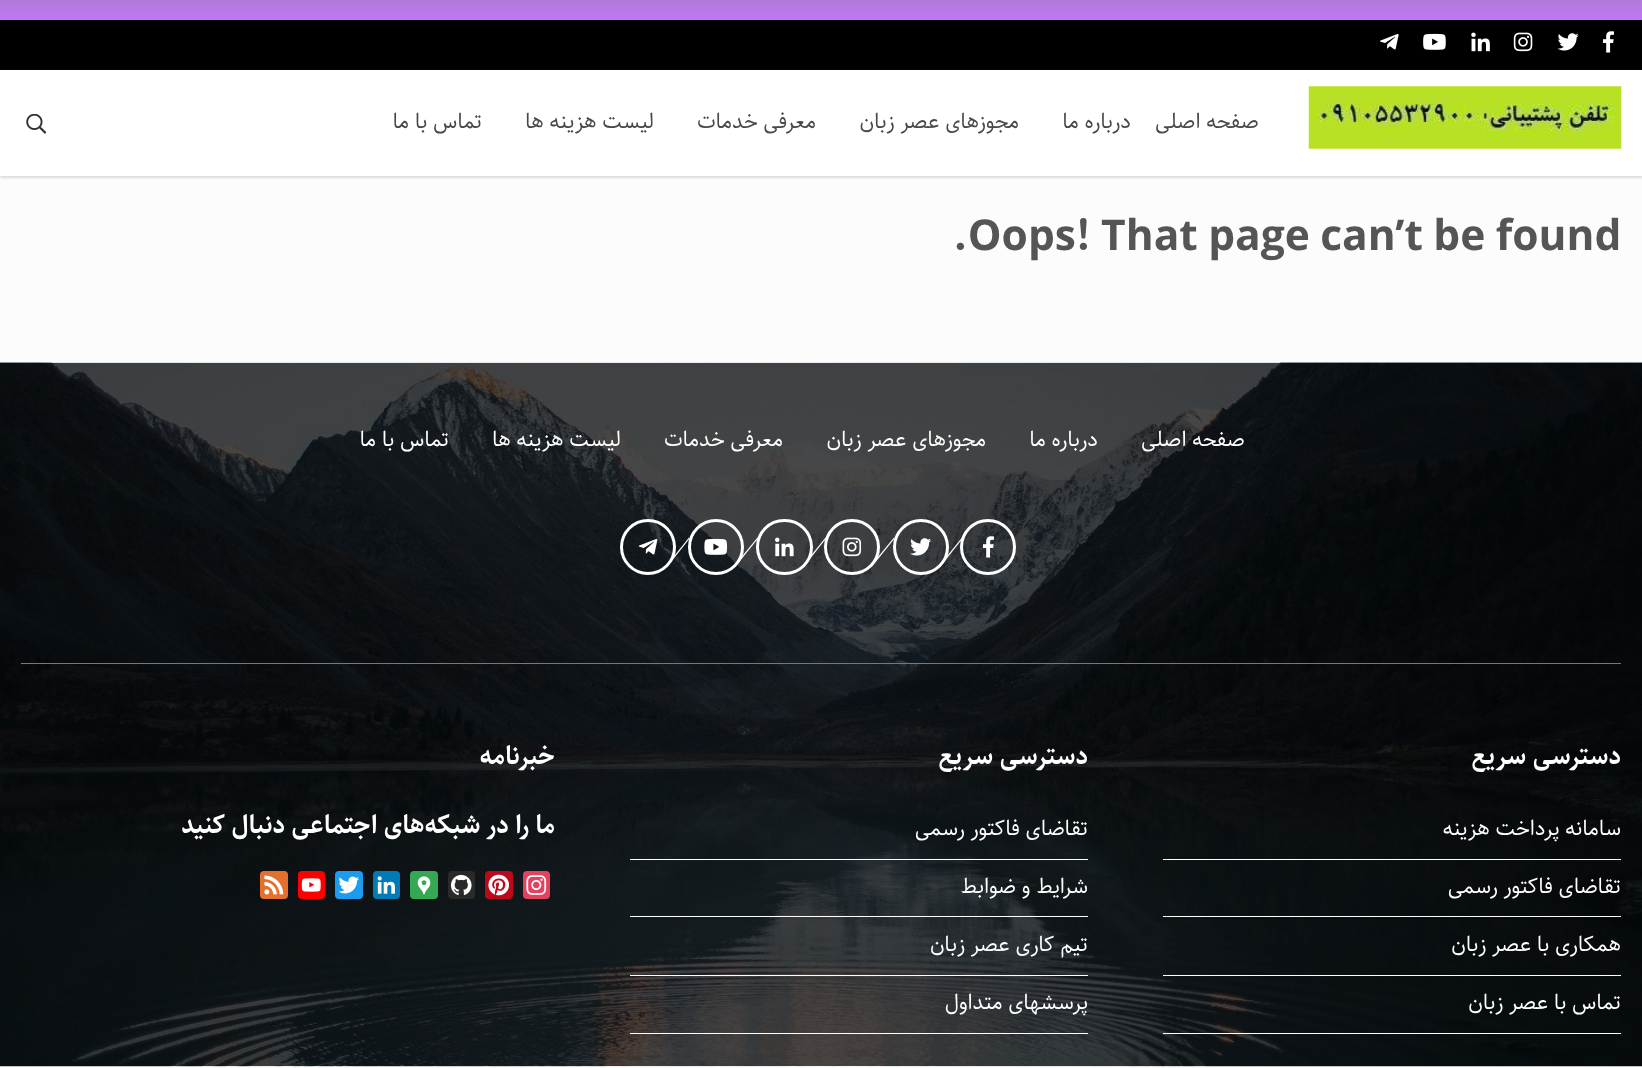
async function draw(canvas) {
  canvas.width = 1642
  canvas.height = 1068
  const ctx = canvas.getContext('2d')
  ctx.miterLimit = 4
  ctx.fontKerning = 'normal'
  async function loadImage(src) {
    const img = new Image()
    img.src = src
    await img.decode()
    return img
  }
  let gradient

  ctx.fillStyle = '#fcfcfc'
  ctx.fillRect(0, 0, 1642, 1068)
  gradient = ctx.createLinearGradient(821, -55, 821, 20)
  gradient.addColorStop(0, '#888')
  gradient.addColorStop(1, '#bf77f6')
  ctx.fillStyle = gradient
  ctx.fillRect(0, 0, 1642, 20)
  ctx.fillStyle = '#000'
  ctx.fillRect(0, 20, 1642, 50)
  ctx.drawImage(await loadImage('image0.png'), 1603, 31, 11, 22)
  ctx.drawImage(await loadImage('image1.png'), 1557, 33, 22, 18)
  ctx.drawImage(await loadImage('image2.png'), 1513, 32, 20, 20)
  ctx.drawImage(await loadImage('image3.png'), 1471, 32, 19, 20)
  ctx.drawImage(await loadImage('image4.png'), 1423, 33, 23, 17)
  ctx.drawImage(await loadImage('image5.png'), 1380, 33, 19, 17)
  ctx.fillStyle = '#5f5f5f33'
  ctx.filter = 'blur(1px)'
  ctx.beginPath()
  ctx.rect(0, 71, 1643, 107)
  ctx.fill()
  ctx.filter = 'none'
  ctx.fillStyle = '#fff'
  ctx.fillRect(0, 70, 1642, 106)
  ctx.drawImage(await loadImage('image6.png'), 1308, 86, 314, 63)
  ctx.direction = 'rtl'
  ctx.font = '21.25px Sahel'
  ctx.fillStyle = '#494949'
  ctx.fillText('صفحه اصلی', 1259, 128)
  ctx.fillText('درباره ما', 1131, 128)
  ctx.fillText('مجوزهای عصر‌ زبان', 1019, 128)
  ctx.fillText('معرفی خدمات', 816, 128)
  ctx.fillText('لیست هزینه ها', 654, 128)
  ctx.fillText('تماس با ما', 482, 128)
  ctx.drawImage(await loadImage('image7.png'), 26, 114, 20, 20)
  ctx.direction = 'ltr'
  ctx.font = 'bold 42.5px Sahel'
  ctx.fillStyle = '#555'
  ctx.fillText('.Oops! That page can’t be found', 953, 250)
  ctx.drawImage(await loadImage('image8.png'), 0, 362, 1642, 705)
  ctx.direction = 'rtl'
  ctx.font = '21.25px Sahel'
  ctx.fillStyle = '#fff'
  ctx.fillText('صفحه اصلی', 1245, 446)
  ctx.fillText('درباره ما', 1098, 446)
  ctx.fillText('مجوزهای عصر‌ زبان', 986, 446)
  ctx.fillText('معرفی خدمات', 783, 446)
  ctx.fillText('لیست هزینه ها', 621, 446)
  ctx.fillText('تماس با ما', 449, 446)
  ctx.beginPath()
  ctx.arc(988, 547, 26.5, 0, 2 * Math.PI)
  ctx.strokeStyle = '#fff'
  ctx.lineWidth = 3
  ctx.stroke()
  ctx.drawImage(await loadImage('image9.png'), 983, 536, 11, 22)
  ctx.beginPath()
  ctx.moveTo(962, 537.5)
  ctx.lineTo(963, 538)
  ctx.lineTo(940.5, 566.5)
  ctx.lineTo(939.5, 565.5)
  ctx.closePath()
  ctx.fill()
  ctx.beginPath()
  ctx.arc(921, 547, 26.5, 0, 2 * Math.PI)
  ctx.stroke()
  ctx.drawImage(await loadImage('image10.png'), 910, 538, 22, 18)
  ctx.beginPath()
  ctx.moveTo(894, 537.5)
  ctx.lineTo(895, 538)
  ctx.lineTo(872, 566.5)
  ctx.lineTo(871, 565.5)
  ctx.closePath()
  ctx.fill()
  ctx.beginPath()
  ctx.arc(852, 547, 26.5, 0, 2 * Math.PI)
  ctx.stroke()
  ctx.drawImage(await loadImage('image11.png'), 842, 537, 20, 20)
  ctx.beginPath()
  ctx.moveTo(825.5, 537.5)
  ctx.lineTo(826.5, 538)
  ctx.lineTo(804, 566.5)
  ctx.lineTo(803, 565.5)
  ctx.closePath()
  ctx.fill()
  ctx.beginPath()
  ctx.roundRect(757.5, 520.5, 54, 53, 26.5)
  ctx.stroke()
  ctx.drawImage(await loadImage('image12.png'), 775, 537, 19, 20)
  ctx.beginPath()
  ctx.moveTo(757.5, 537.5)
  ctx.lineTo(758.5, 538)
  ctx.lineTo(735.5, 566.5)
  ctx.lineTo(734.5, 565.5)
  ctx.closePath()
  ctx.fill()
  ctx.beginPath()
  ctx.arc(716, 547, 26.5, 0, 2 * Math.PI)
  ctx.stroke()
  ctx.drawImage(await loadImage('image13.png'), 704, 538, 24, 17)
  ctx.beginPath()
  ctx.moveTo(689, 537.5)
  ctx.lineTo(690, 538)
  ctx.lineTo(667.5, 566.5)
  ctx.lineTo(666.5, 565.5)
  ctx.closePath()
  ctx.fill()
  ctx.beginPath()
  ctx.arc(648, 547, 26.5, 0, 2 * Math.PI)
  ctx.stroke()
  ctx.drawImage(await loadImage('image14.png'), 638, 538, 20, 17)
  ctx.fillStyle = '#787878'
  ctx.fillRect(21, 663, 1600, 1)
  ctx.font = 'bold 25px Sahel'
  ctx.fillStyle = '#fff'
  ctx.fillText('دسترسی سریع', 1621, 764)
  ctx.fillRect(1163, 859, 458, 1)
  ctx.font = '21.25px Sahel'
  ctx.fillText('سامانه پرداخت هزینه', 1621, 835)
  ctx.fillRect(1163, 916, 458, 1)
  ctx.fillText('تقاضای فاکتور رسمی', 1621, 893)
  ctx.fillRect(1163, 975, 458, 1)
  ctx.fillText('همکاری با عصر زبان', 1621, 951)
  ctx.fillRect(1163, 1033, 458, 1)
  ctx.fillText('تماس با عصر زبان', 1621, 1009)
  ctx.font = 'bold 25px Sahel'
  ctx.fillText('دسترسی سریع', 1088, 764)
  ctx.fillRect(630, 859, 458, 1)
  ctx.font = '21.25px Sahel'
  ctx.fillText('تقاضای فاکتور رسمی', 1088, 835)
  ctx.fillRect(630, 916, 458, 1)
  ctx.fillText('شرایط و ضوابط', 1088, 893)
  ctx.fillRect(630, 975, 458, 1)
  ctx.fillText('تیم کاری عصر زبان', 1088, 951)
  ctx.fillRect(630, 1033, 458, 1)
  ctx.fillText('پرسشهای متداول', 1088, 1009)
  ctx.font = 'bold 25px Sahel'
  ctx.fillText('خبرنامه', 555, 764)
  ctx.fillText('ما را در شبکه‌های اجتماعی دنبال کنید', 555, 833)
  ctx.fillStyle = '#e4405f'
  ctx.beginPath()
  ctx.roundRect(523, 871, 27, 28, 4)
  ctx.fill()
  ctx.drawImage(await loadImage('image15.png'), 526, 875, 21, 20)
  ctx.fillStyle = '#bd081c'
  ctx.beginPath()
  ctx.roundRect(485, 871, 28, 28, 4)
  ctx.fill()
  ctx.drawImage(await loadImage('image16.png'), 488, 874, 21, 22)
  ctx.fillStyle = '#2a2a2a'
  ctx.beginPath()
  ctx.roundRect(448, 871, 27, 28, 4)
  ctx.fill()
  ctx.drawImage(await loadImage('image17.png'), 450, 874, 22, 21)
  ctx.fillStyle = '#34a853'
  ctx.beginPath()
  ctx.roundRect(410, 871, 28, 28, 4)
  ctx.fill()
  ctx.drawImage(await loadImage('image18.png'), 417, 876, 14, 19)
  ctx.fillStyle = '#007bb5'
  ctx.beginPath()
  ctx.roundRect(373, 871, 27, 28, 4)
  ctx.fill()
  ctx.drawImage(await loadImage('image19.png'), 377, 876, 18, 18)
  ctx.fillStyle = '#1d9bf0'
  ctx.beginPath()
  ctx.roundRect(335, 871, 28, 28, 4)
  ctx.fill()
  ctx.drawImage(await loadImage('image20.png'), 338, 876, 21, 18)
  ctx.fillStyle = '#f00'
  ctx.beginPath()
  ctx.roundRect(298, 871, 27, 28, 4)
  ctx.fill()
  ctx.drawImage(await loadImage('image21.png'), 301, 878, 20, 14)
  ctx.fillStyle = '#e3702d'
  ctx.beginPath()
  ctx.roundRect(260, 871, 28, 28, 4)
  ctx.fill()
  ctx.drawImage(await loadImage('image22.png'), 264, 875, 20, 20)
}

draw(document.querySelector('canvas'))
